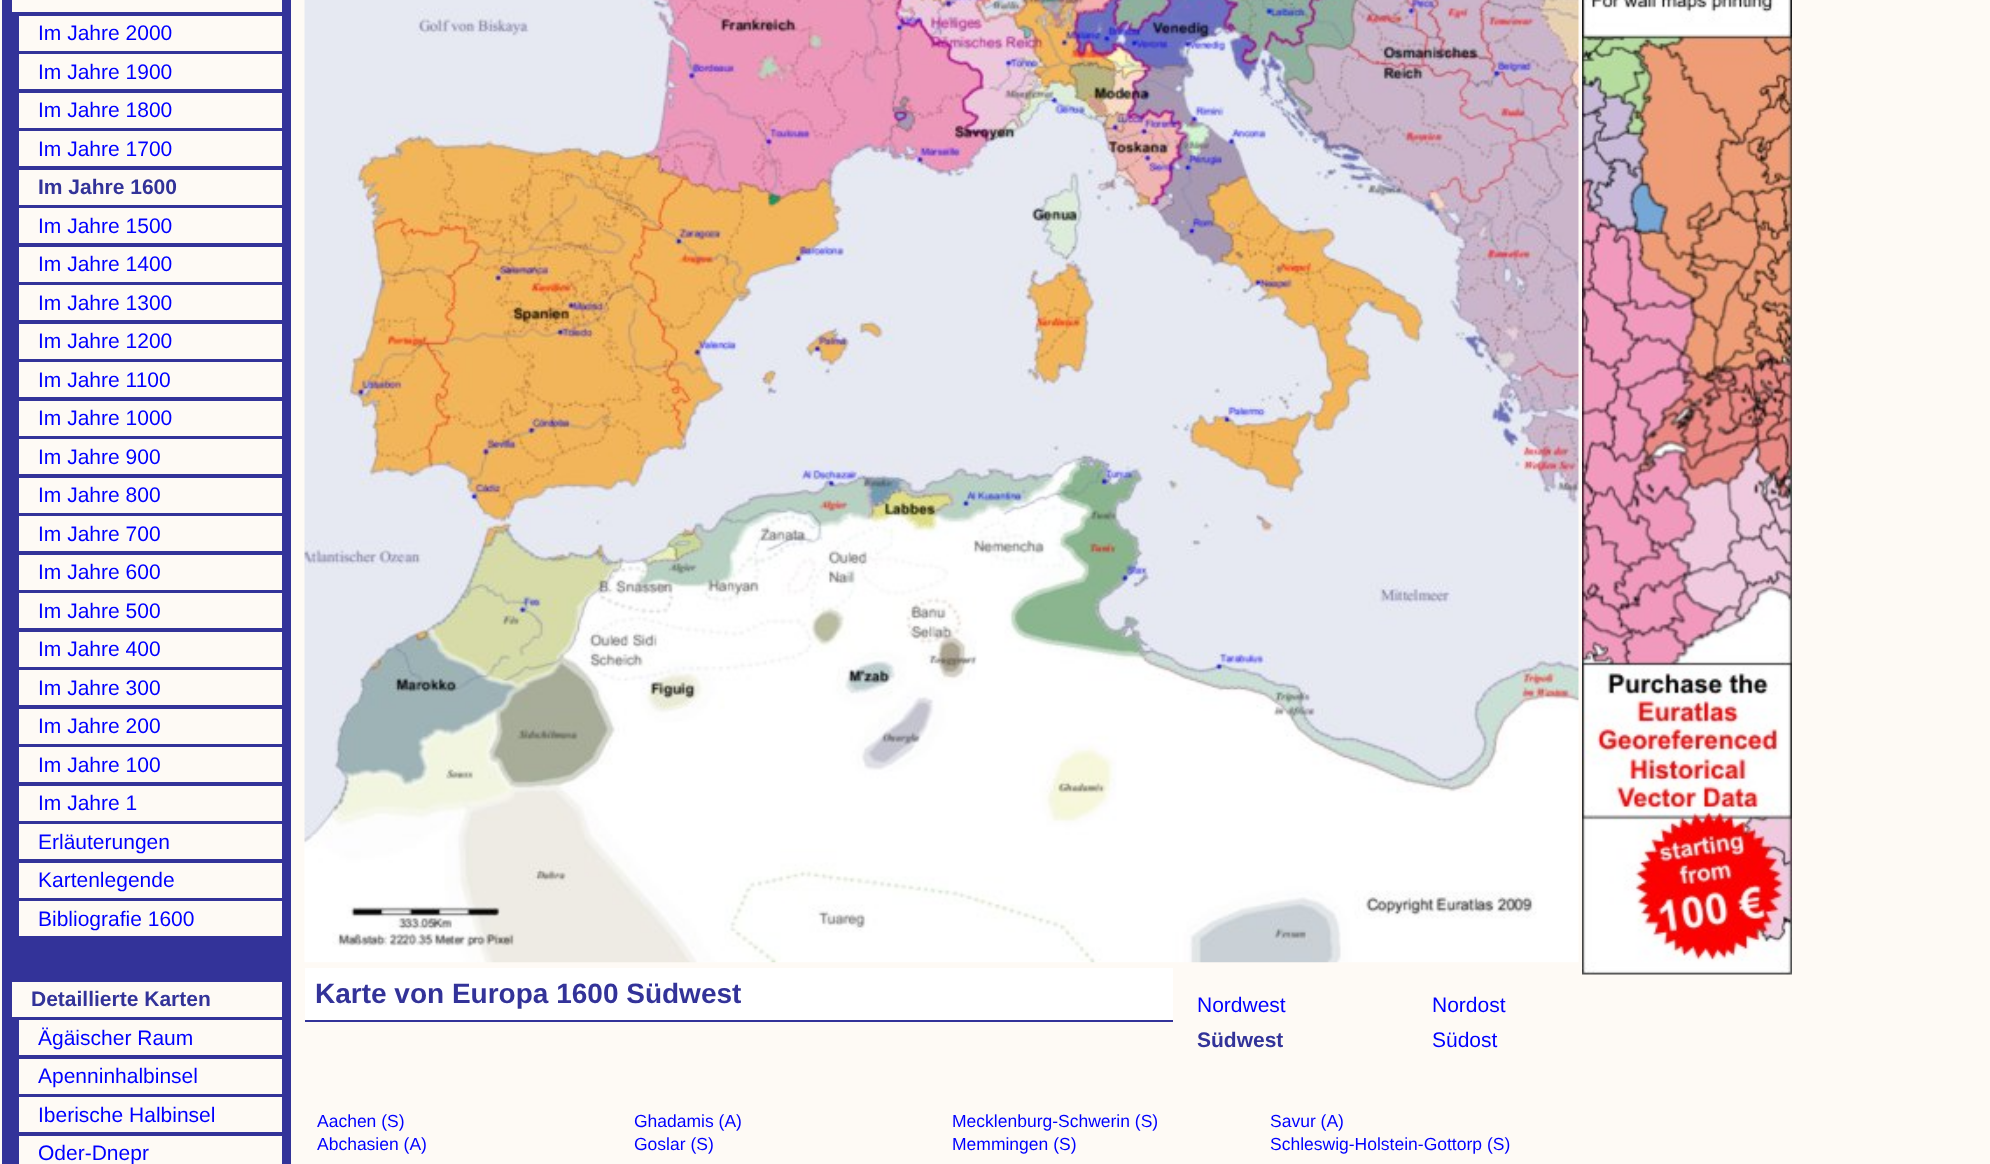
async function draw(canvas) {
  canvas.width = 1990
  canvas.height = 1164
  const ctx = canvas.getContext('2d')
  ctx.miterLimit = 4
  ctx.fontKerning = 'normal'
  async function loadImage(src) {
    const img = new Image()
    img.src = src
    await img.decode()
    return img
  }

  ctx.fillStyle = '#fefaf5'
  ctx.fillRect(0, 0, 1990, 1164)
  ctx.fillStyle = '#339'
  ctx.fillRect(2, 0, 289, 1164)
  ctx.fillStyle = '#fefaf5'
  ctx.fillRect(12, 0, 270, 12)
  ctx.fillRect(19, 16, 263, 35)
  ctx.font = '21px Liberation Sans'
  ctx.fillStyle = '#00f'
  ctx.fillText('Im Jahre 2000', 38, 40)
  ctx.fillStyle = '#fefaf5'
  ctx.fillRect(19, 54, 263, 35)
  ctx.fillStyle = '#00f'
  ctx.fillText('Im Jahre 1900', 38, 79)
  ctx.fillStyle = '#fefaf5'
  ctx.fillRect(19, 93, 263, 35)
  ctx.fillStyle = '#00f'
  ctx.fillText('Im Jahre 1800', 38, 117)
  ctx.fillStyle = '#fefaf5'
  ctx.fillRect(19, 131, 263, 35)
  ctx.fillStyle = '#00f'
  ctx.fillText('Im Jahre 1700', 38, 156)
  ctx.fillStyle = '#fefaf5'
  ctx.fillRect(19, 170, 263, 35)
  ctx.font = 'bold 21px Liberation Sans'
  ctx.fillStyle = '#339'
  ctx.fillText('Im Jahre 1600', 38, 194)
  ctx.fillStyle = '#fefaf5'
  ctx.fillRect(19, 208, 263, 35)
  ctx.font = '21px Liberation Sans'
  ctx.fillStyle = '#00f'
  ctx.fillText('Im Jahre 1500', 38, 233)
  ctx.fillStyle = '#fefaf5'
  ctx.fillRect(19, 247, 263, 35)
  ctx.fillStyle = '#00f'
  ctx.fillText('Im Jahre 1400', 38, 271)
  ctx.fillStyle = '#fefaf5'
  ctx.fillRect(19, 285, 263, 35)
  ctx.fillStyle = '#00f'
  ctx.fillText('Im Jahre 1300', 38, 310)
  ctx.fillStyle = '#fefaf5'
  ctx.fillRect(19, 324, 263, 35)
  ctx.fillStyle = '#00f'
  ctx.fillText('Im Jahre 1200', 38, 348)
  ctx.fillStyle = '#fefaf5'
  ctx.fillRect(19, 362, 263, 35)
  ctx.fillStyle = '#00f'
  ctx.fillText('Im Jahre 1100', 38, 387)
  ctx.fillStyle = '#fefaf5'
  ctx.fillRect(19, 401, 263, 35)
  ctx.fillStyle = '#00f'
  ctx.fillText('Im Jahre 1000', 38, 425)
  ctx.fillStyle = '#fefaf5'
  ctx.fillRect(19, 439, 263, 35)
  ctx.fillStyle = '#00f'
  ctx.fillText('Im Jahre 900', 38, 464)
  ctx.fillStyle = '#fefaf5'
  ctx.fillRect(19, 478, 263, 35)
  ctx.fillStyle = '#00f'
  ctx.fillText('Im Jahre 800', 38, 502)
  ctx.fillStyle = '#fefaf5'
  ctx.fillRect(19, 516, 263, 35)
  ctx.fillStyle = '#00f'
  ctx.fillText('Im Jahre 700', 38, 541)
  ctx.fillStyle = '#fefaf5'
  ctx.fillRect(19, 555, 263, 35)
  ctx.fillStyle = '#00f'
  ctx.fillText('Im Jahre 600', 38, 579)
  ctx.fillStyle = '#fefaf5'
  ctx.fillRect(19, 593, 263, 35)
  ctx.fillStyle = '#00f'
  ctx.fillText('Im Jahre 500', 38, 618)
  ctx.fillStyle = '#fefaf5'
  ctx.fillRect(19, 632, 263, 35)
  ctx.fillStyle = '#00f'
  ctx.fillText('Im Jahre 400', 38, 656)
  ctx.fillStyle = '#fefaf5'
  ctx.fillRect(19, 670, 263, 35)
  ctx.fillStyle = '#00f'
  ctx.fillText('Im Jahre 300', 38, 695)
  ctx.fillStyle = '#fefaf5'
  ctx.fillRect(19, 709, 263, 35)
  ctx.fillStyle = '#00f'
  ctx.fillText('Im Jahre 200', 38, 733)
  ctx.fillStyle = '#fefaf5'
  ctx.fillRect(19, 747, 263, 35)
  ctx.fillStyle = '#00f'
  ctx.fillText('Im Jahre 100', 38, 772)
  ctx.fillStyle = '#fefaf5'
  ctx.fillRect(19, 786, 263, 35)
  ctx.fillStyle = '#00f'
  ctx.fillText('Im Jahre 1', 38, 810)
  ctx.fillStyle = '#fefaf5'
  ctx.fillRect(19, 824, 263, 35)
  ctx.fillStyle = '#00f'
  ctx.fillText('Erläuterungen', 38, 849)
  ctx.fillStyle = '#fefaf5'
  ctx.fillRect(19, 863, 263, 35)
  ctx.fillStyle = '#00f'
  ctx.fillText('Kartenlegende', 38, 887)
  ctx.fillStyle = '#fefaf5'
  ctx.fillRect(19, 901, 263, 35)
  ctx.fillStyle = '#00f'
  ctx.fillText('Bibliografie 1600', 38, 926)
  ctx.fillStyle = '#fefaf5'
  ctx.fillRect(12, 982, 270, 35)
  ctx.font = 'bold 21px Liberation Sans'
  ctx.fillStyle = '#339'
  ctx.fillText('Detaillierte Karten', 31, 1006)
  ctx.fillStyle = '#fefaf5'
  ctx.fillRect(19, 1020, 263, 35)
  ctx.font = '21px Liberation Sans'
  ctx.fillStyle = '#00f'
  ctx.fillText('Ägäischer Raum', 38, 1045)
  ctx.fillStyle = '#fefaf5'
  ctx.fillRect(19, 1059, 263, 35)
  ctx.fillStyle = '#00f'
  ctx.fillText('Apenninhalbinsel', 38, 1083)
  ctx.fillStyle = '#fefaf5'
  ctx.fillRect(19, 1097, 263, 35)
  ctx.fillStyle = '#00f'
  ctx.fillText('Iberische Halbinsel', 38, 1122)
  ctx.fillStyle = '#fefaf5'
  ctx.fillRect(19, 1136, 263, 28)
  ctx.fillStyle = '#00f'
  ctx.fillText('Oder-Dnepr', 38, 1160)
  ctx.drawImage(await loadImage('image0.png'), 304, 0, 1275, 963)
  ctx.drawImage(await loadImage('image1.png'), 1582, 0, 210, 975)
  ctx.fillStyle = '#fff'
  ctx.fillRect(305, 968, 868, 52)
  ctx.fillStyle = '#339'
  ctx.fillRect(305, 1020, 868, 2)
  ctx.font = 'bold 28px Liberation Sans'
  ctx.fillText('Karte von Europa 1600 Südwest', 315, 1003)
  ctx.font = '21px Liberation Sans'
  ctx.fillStyle = '#00f'
  ctx.fillText('Nordwest', 1197, 1012)
  ctx.fillText('Nordost', 1432, 1012)
  ctx.font = 'bold 21px Liberation Sans'
  ctx.fillStyle = '#339'
  ctx.fillText('Südwest', 1197, 1047)
  ctx.font = '21px Liberation Sans'
  ctx.fillStyle = '#00f'
  ctx.fillText('Südost', 1432, 1047)
  ctx.font = '17.5px Liberation Sans'
  ctx.fillText('Aachen (S)', 317, 1127)
  ctx.fillText('Ghadamis (A)', 634, 1127)
  ctx.fillText('Mecklenburg-Schwerin (S)', 952, 1127)
  ctx.fillText('Savur (A)', 1270, 1127)
  ctx.fillText('Abchasien (A)', 317, 1150)
  ctx.fillText('Goslar (S)', 634, 1150)
  ctx.fillText('Memmingen (S)', 952, 1150)
  ctx.fillText('Schleswig-Holstein-Gottorp (S)', 1270, 1150)
}

draw(document.querySelector('canvas'))
